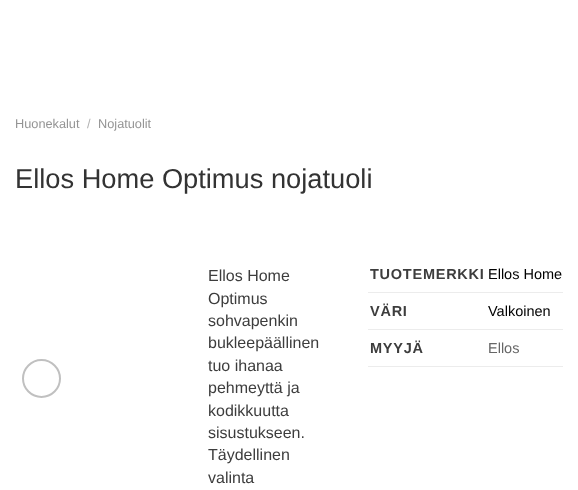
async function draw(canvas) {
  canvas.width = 578
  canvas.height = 490
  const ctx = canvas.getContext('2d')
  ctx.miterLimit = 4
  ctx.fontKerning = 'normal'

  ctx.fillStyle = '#fff'
  ctx.fillRect(0, 0, 578, 490)
  ctx.font = '12.75px Liberation Sans'
  ctx.fillStyle = '#949494'
  ctx.fillText('Huonekalut', 15, 128)
  ctx.fillStyle = '#b2b2b2'
  ctx.fillText('/', 87, 128)
  ctx.fillStyle = '#949494'
  ctx.fillText('Nojatuolit', 98, 128)
  ctx.font = '27.25px Liberation Sans'
  ctx.fillStyle = '#333'
  ctx.fillText('Ellos Home Optimus nojatuoli', 15, 188)
  ctx.beginPath()
  ctx.arc(41.5, 378.5, 18.5, 0, 2 * Math.PI)
  ctx.strokeStyle = '#c0c0c0'
  ctx.lineWidth = 2
  ctx.stroke()
  ctx.font = '16px Liberation Sans'
  ctx.fillStyle = '#3d3d3d'
  ctx.fillText('Ellos Home', 208, 281)
  ctx.fillText('Optimus', 208, 304)
  ctx.fillText('sohvapenkin', 208, 326)
  ctx.fillText('bukleepäällinen', 208, 348)
  ctx.fillText('tuo ihanaa', 208, 371)
  ctx.fillText('pehmeyttä ja', 208, 393)
  ctx.fillText('kodikkuutta', 208, 416)
  ctx.fillText('sisustukseen.', 208, 438)
  ctx.fillText('Täydellinen', 208, 460)
  ctx.fillText('valinta', 208, 483)
  ctx.fillStyle = '#ececec'
  ctx.fillRect(368, 292, 195, 1)
  ctx.letterSpacing = '0.75px'
  ctx.font = 'bold 14.5px Liberation Sans'
  ctx.fillStyle = '#3d3d3d'
  ctx.fillText('TUOTEMERKKI', 370, 279)
  ctx.letterSpacing = '0px'
  ctx.font = '14.5px Liberation Sans'
  ctx.fillStyle = '#000'
  ctx.fillText('Ellos Home', 488, 279)
  ctx.fillStyle = '#ececec'
  ctx.fillRect(368, 329, 195, 1)
  ctx.letterSpacing = '0.75px'
  ctx.font = 'bold 14.5px Liberation Sans'
  ctx.fillStyle = '#3d3d3d'
  ctx.fillText('VÄRI', 370, 316)
  ctx.letterSpacing = '0px'
  ctx.font = '14.5px Liberation Sans'
  ctx.fillStyle = '#000'
  ctx.fillText('Valkoinen', 488, 316)
  ctx.fillStyle = '#ececec'
  ctx.fillRect(368, 366, 195, 1)
  ctx.letterSpacing = '0.75px'
  ctx.font = 'bold 14.5px Liberation Sans'
  ctx.fillStyle = '#3d3d3d'
  ctx.fillText('MYYJÄ', 370, 353)
  ctx.letterSpacing = '0px'
  ctx.font = '14.5px Liberation Sans'
  ctx.fillStyle = '#666'
  ctx.fillText('Ellos', 488, 353)
}

draw(document.querySelector('canvas'))
